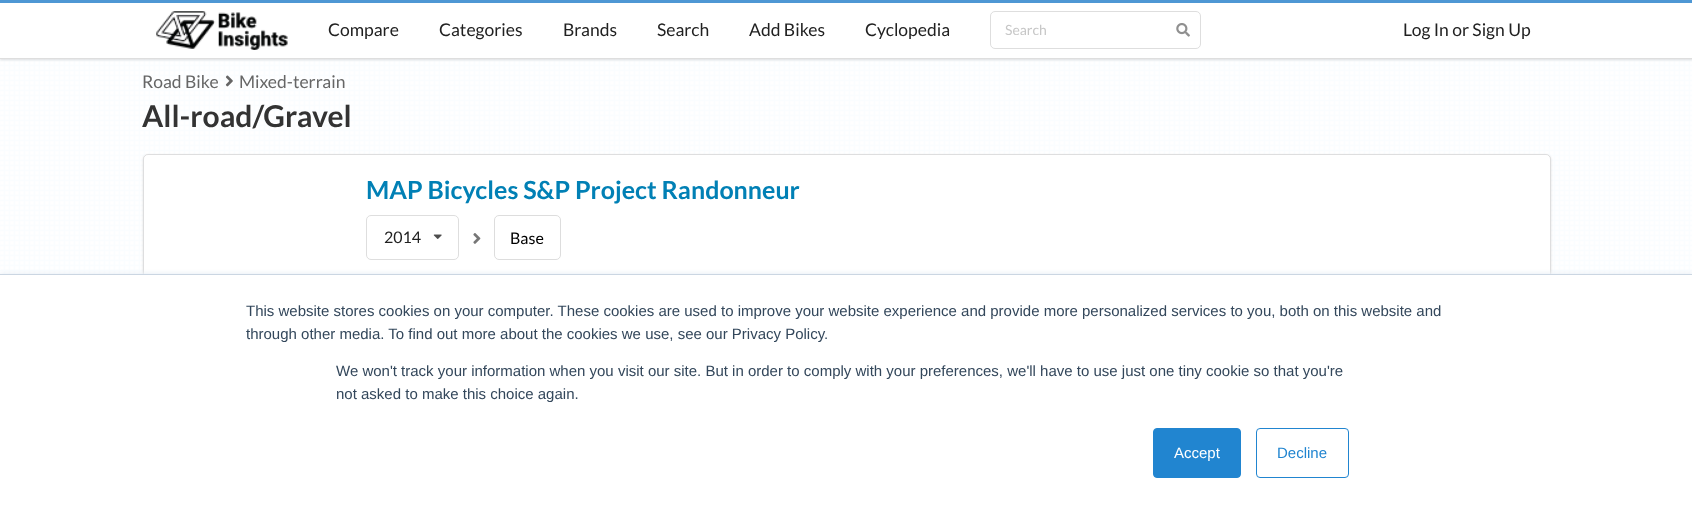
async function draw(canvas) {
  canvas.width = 1692
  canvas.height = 509
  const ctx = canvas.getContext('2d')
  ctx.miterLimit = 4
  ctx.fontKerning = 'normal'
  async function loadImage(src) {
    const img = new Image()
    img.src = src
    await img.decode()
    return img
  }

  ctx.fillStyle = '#fff'
  ctx.fillRect(0, 0, 1692, 509)
  ctx.drawImage(await loadImage('image0.png'), 0, 59, 1692, 215)
  ctx.fillStyle = '#22242626'
  ctx.filter = 'blur(1px)'
  ctx.beginPath()
  ctx.rect(0, 1, 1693, 59)
  ctx.fill()
  ctx.filter = 'none'
  ctx.fillStyle = '#fff'
  ctx.fillRect(0, 3, 1692, 55)
  ctx.fillStyle = '#4e97d4'
  ctx.fillRect(0, 0, 1692, 3)
  ctx.fillStyle = '#dedede'
  ctx.fillRect(0, 58, 1692, 1)
  ctx.drawImage(await loadImage('image1.png'), 156, 11, 132, 39)
  ctx.font = '17.5px Lato'
  ctx.fillStyle = '#212121'
  ctx.fillText('Compare', 328, 36)
  ctx.fillText('Categories', 439, 36)
  ctx.fillText('Brands', 563, 36)
  ctx.fillText('Search', 657, 36)
  ctx.fillText('Add Bikes', 749, 36)
  ctx.fillText('Cyclopedia', 865, 36)
  ctx.beginPath()
  ctx.roundRect(990.5, 11.5, 210, 37, 4.5)
  ctx.strokeStyle = '#dedede'
  ctx.stroke()
  ctx.font = '14px Lato'
  ctx.fillStyle = '#c7c7c7'
  ctx.fillText('Search', 1005, 35)
  ctx.drawImage(await loadImage('image2.png'), 1176, 23, 14, 14)
  ctx.font = '17.5px Lato'
  ctx.fillStyle = '#212121'
  ctx.fillText('Log In or Sign Up', 1403, 36)
  ctx.fillStyle = '#666'
  ctx.fillText('Road Bike', 142, 88)
  ctx.drawImage(await loadImage('image3.png'), 225, 75, 8, 12)
  ctx.fillText('Mixed-terrain', 239, 88)
  ctx.font = 'bold 30px Lato'
  ctx.fillStyle = '#333'
  ctx.fillText('All-road/Gravel', 142, 127)
  ctx.fillStyle = '#22242626'
  ctx.filter = 'blur(1px)'
  ctx.beginPath()
  ctx.roundRect(143, 155, 1408, 128, 5)
  ctx.fill()
  ctx.filter = 'none'
  ctx.fillStyle = '#fff'
  ctx.beginPath()
  ctx.roundRect(143, 154, 1408, 127, 5)
  ctx.fill()
  ctx.beginPath()
  ctx.roundRect(143.5, 154.5, 1407, 126, 4.5)
  ctx.strokeStyle = '#22242626'
  ctx.stroke()
  ctx.font = 'bold 25px Lato'
  ctx.fillStyle = '#0180b5'
  ctx.fillText('MAP Bicycles S&P Project Randonneur', 366, 199)
  ctx.beginPath()
  ctx.roundRect(366.5, 215.5, 92, 44, 4.5)
  ctx.strokeStyle = '#dedede'
  ctx.stroke()
  ctx.font = '16px Lato'
  ctx.fillStyle = '#212121'
  ctx.fillText('2014', 384, 243)
  ctx.drawImage(await loadImage('image4.png'), 433, 234, 9, 5)
  ctx.drawImage(await loadImage('image5.png'), 473, 233, 8, 11)
  ctx.beginPath()
  ctx.roundRect(494.5, 215.5, 66, 44, 4.5)
  ctx.strokeStyle = '#ddd'
  ctx.stroke()
  ctx.fillStyle = '#000'
  ctx.fillText('Base', 510, 244)
  ctx.fillStyle = '#eaf0f6'
  ctx.filter = 'blur(2px)'
  ctx.beginPath()
  ctx.rect(0, 273, 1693, 236)
  ctx.fill()
  ctx.filter = 'none'
  ctx.fillStyle = '#fff'
  ctx.fillRect(0, 275, 1692, 234)
  ctx.fillStyle = '#cbd6e2'
  ctx.fillRect(0, 274, 1692, 1)
  ctx.font = '15px Liberation Sans'
  ctx.fillStyle = '#33475b'
  ctx.fillText('This website stores cookies on your computer. These cookies are used to improve your website experience and provide more personalized services to you, both on this website and', 246, 316)
  ctx.fillText('through other media. To find out more about the cookies we use, see our Privacy Policy.', 246, 339)
  ctx.fillText('We won\'t track your information when you visit our site. But in order to comply with your preferences, we\'ll have to use just one tiny cookie so that you\'re', 336, 376)
  ctx.fillText('not asked to make this choice again.', 336, 399)
  ctx.fillStyle = '#2185d0'
  ctx.beginPath()
  ctx.roundRect(1153.5, 428.5, 87, 49, 3.5)
  ctx.fill()
  ctx.strokeStyle = '#2185d0'
  ctx.stroke()
  ctx.fillStyle = '#fff'
  ctx.fillText('Accept', 1174, 458)
  ctx.beginPath()
  ctx.roundRect(1256.5, 428.5, 92, 49, 3.5)
  ctx.stroke()
  ctx.fillStyle = '#2185d0'
  ctx.fillText('Decline', 1277, 458)
}

draw(document.querySelector('canvas'))
